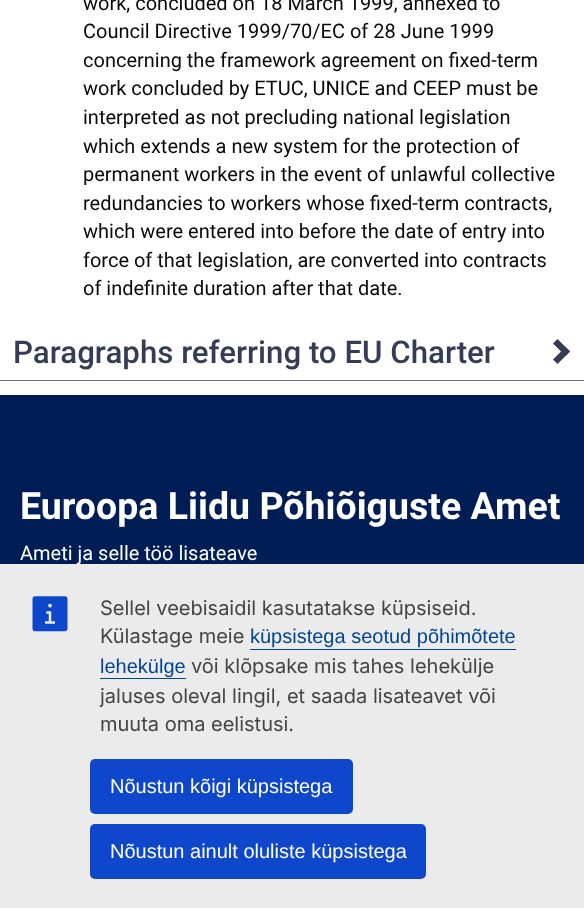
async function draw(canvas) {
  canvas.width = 584
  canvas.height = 908
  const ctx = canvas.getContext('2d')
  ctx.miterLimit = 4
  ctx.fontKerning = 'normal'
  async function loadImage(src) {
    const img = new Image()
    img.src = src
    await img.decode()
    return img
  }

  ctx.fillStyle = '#fff'
  ctx.fillRect(0, 0, 584, 908)
  ctx.font = '20px Roboto'
  ctx.fillStyle = '#0a0a0a'
  ctx.fillText('work, concluded on 18 March 1999, annexed to', 83, 10)
  ctx.fillText('Council Directive 1999/70/EC of 28 June 1999', 83, 38)
  ctx.fillText('concerning the framework agreement on fixed-term', 83, 67)
  ctx.fillText('work concluded by ETUC, UNICE and CEEP must be', 83, 95)
  ctx.fillText('interpreted as not precluding national legislation', 83, 124)
  ctx.fillText('which extends a new system for the protection of', 83, 153)
  ctx.fillText('permanent workers in the event of unlawful collective', 83, 181)
  ctx.fillText('redundancies to workers whose fixed-term contracts,', 83, 210)
  ctx.fillText('which were entered into before the date of entry into', 83, 238)
  ctx.fillText('force of that legislation, are converted into contracts', 83, 267)
  ctx.fillText('of indefinite duration after that date.', 83, 295)
  ctx.fillStyle = '#707070'
  ctx.fillRect(0, 380, 584, 1)
  ctx.font = '500 31.25px Roboto'
  ctx.fillStyle = '#343d55'
  ctx.fillText('Paragraphs referring to EU Charter', 13, 363)
  ctx.beginPath()
  ctx.moveTo(553, 343.5)
  ctx.lineTo(557.5, 339)
  ctx.lineTo(570, 351.5)
  ctx.lineTo(565.5, 356)
  ctx.closePath()
  ctx.fill()
  ctx.beginPath()
  ctx.moveTo(553, 359.5)
  ctx.lineTo(565.5, 347)
  ctx.lineTo(570, 351.5)
  ctx.lineTo(557.5, 364)
  ctx.closePath()
  ctx.fill()
  ctx.fillStyle = '#011d55'
  ctx.fillRect(0, 395, 584, 169)
  ctx.font = 'bold 37.5px Roboto'
  ctx.fillStyle = '#fff'
  ctx.fillText('Euroopa Liidu Põhiõiguste Amet', 20, 519)
  ctx.font = '20px Roboto'
  ctx.fillText('Ameti ja selle töö lisateave', 20, 560)
  ctx.fillStyle = '#ebebeb'
  ctx.fillRect(0, 564, 584, 344)
  ctx.drawImage(await loadImage('image0.png'), 32, 596, 36, 36)
  ctx.font = '20px Inter'
  ctx.fillStyle = '#444'
  ctx.fillText('Sellel veebisaidil kasutatakse küpsiseid.', 100, 615)
  ctx.fillText('Külastage meie', 100, 643)
  ctx.font = '20px Liberation Sans'
  ctx.fillStyle = '#004494'
  ctx.fillText('küpsistega seotud põhimõtete', 250, 643)
  ctx.fillRect(250, 649, 266, 1)
  ctx.fillText('lehekülge', 100, 673)
  ctx.fillRect(100, 678, 86, 1)
  ctx.font = '20px Inter'
  ctx.fillStyle = '#444'
  ctx.fillText('või klõpsake mis tahes lehekülje', 191, 673)
  ctx.fillText('jaluses oleval lingil, et saada lisateavet või', 100, 703)
  ctx.fillText('muuta oma eelistusi.', 100, 731)
  ctx.fillStyle = '#0e47cb'
  ctx.beginPath()
  ctx.roundRect(90, 759, 263, 55, 5)
  ctx.fill()
  ctx.font = '20px Liberation Sans'
  ctx.fillStyle = '#fff'
  ctx.fillText('Nõustun kõigi küpsistega', 110, 793)
  ctx.fillStyle = '#0e47cb'
  ctx.beginPath()
  ctx.roundRect(90, 824, 336, 55, 5)
  ctx.fill()
  ctx.fillStyle = '#fff'
  ctx.fillText('Nõustun ainult oluliste küpsistega', 110, 858)
}

draw(document.querySelector('canvas'))
